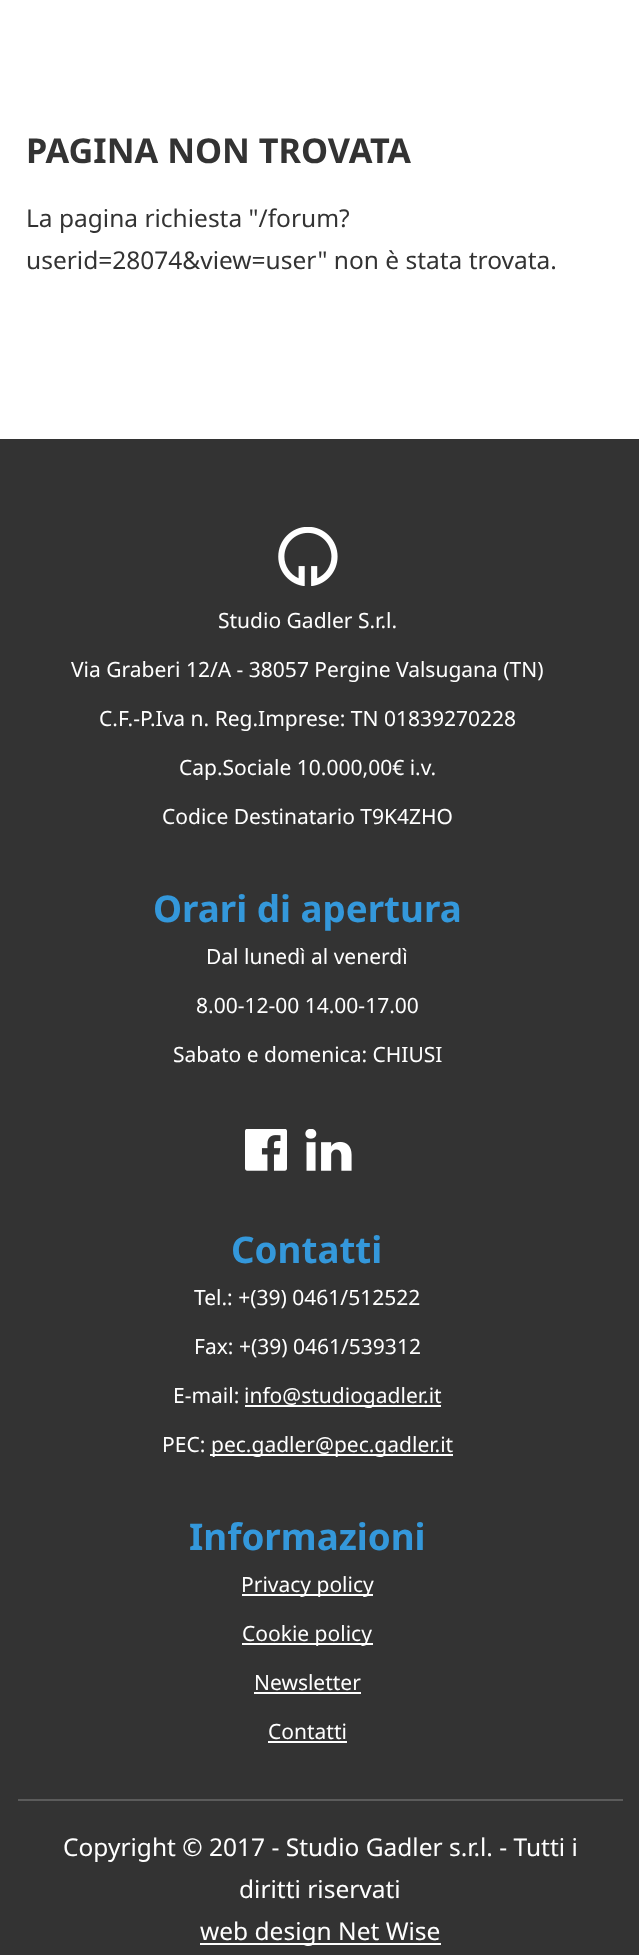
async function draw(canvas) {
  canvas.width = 639
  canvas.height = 1955
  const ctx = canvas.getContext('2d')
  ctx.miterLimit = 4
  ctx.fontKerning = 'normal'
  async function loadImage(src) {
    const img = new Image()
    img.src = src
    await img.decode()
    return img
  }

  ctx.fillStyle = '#fff'
  ctx.fillRect(0, 0, 639, 1955)
  ctx.font = 'bold 34.25px Noto Sans'
  ctx.fillStyle = '#333'
  ctx.fillText('PAGINA NON TROVATA', 26, 163)
  ctx.font = '24.5px Noto Sans'
  ctx.fillText('La pagina richiesta "/forum?', 26, 227)
  ctx.fillText('userid=28074&view=user" non è stata trovata.', 26, 269)
  ctx.fillRect(0, 439, 639, 1516)
  ctx.drawImage(await loadImage('image0.png'), 278, 527, 60, 59)
  ctx.font = '21px Noto Sans'
  ctx.fillStyle = '#fff'
  ctx.fillText('Studio Gadler S.r.l.', 218, 628)
  ctx.fillText('Via Graberi 12/A - 38057 Pergine Valsugana (TN)', 71, 677)
  ctx.fillText('C.F.-P.Iva n. Reg.Imprese: TN 01839270228', 99, 726)
  ctx.fillText('Cap.Sociale 10.000,00€ i.v.', 179, 775)
  ctx.fillText('Codice Destinatario T9K4ZHO', 162, 824)
  ctx.font = 'bold 36.75px Noto Sans'
  ctx.fillStyle = '#3498db'
  ctx.fillText('Orari di apertura', 153, 922)
  ctx.font = '21px Noto Sans'
  ctx.fillStyle = '#fff'
  ctx.fillText('Dal lunedì al venerdì', 206, 964)
  ctx.fillText('8.00-12-00 14.00-17.00', 196, 1013)
  ctx.fillText('Sabato e domenica: CHIUSI', 173, 1062)
  ctx.drawImage(await loadImage('image1.png'), 245, 1129, 42, 42)
  ctx.drawImage(await loadImage('image2.png'), 305, 1129, 47, 42)
  ctx.font = 'bold 36.75px Noto Sans'
  ctx.fillStyle = '#3498db'
  ctx.fillText('Contatti', 231, 1263)
  ctx.font = '21px Noto Sans'
  ctx.fillStyle = '#fff'
  ctx.fillText('Tel.: +(39) 0461/512522', 194, 1305)
  ctx.fillText('Fax: +(39) 0461/539312', 194, 1354)
  ctx.fillText('E-mail:', 173, 1403)
  ctx.fillRect(245, 1405, 196, 2)
  ctx.fillText('info@studiogadler.it', 244, 1403)
  ctx.fillText('PEC:', 162, 1452)
  ctx.fillRect(210, 1454, 243, 2)
  ctx.fillText('pec.gadler@pec.gadler.it', 211, 1452)
  ctx.font = 'bold 36.75px Noto Sans'
  ctx.fillStyle = '#3498db'
  ctx.fillText('Informazioni', 189, 1550)
  ctx.fillStyle = '#fff'
  ctx.fillRect(242, 1594, 131, 2)
  ctx.font = '21px Noto Sans'
  ctx.fillText('Privacy policy', 241, 1592)
  ctx.fillRect(242, 1643, 131, 2)
  ctx.fillText('Cookie policy', 242, 1641)
  ctx.fillText('Newsletter', 254, 1690)
  ctx.fillRect(254, 1692, 107, 2)
  ctx.fillText('Contatti', 268, 1739)
  ctx.fillRect(268, 1741, 79, 2)
  ctx.fillStyle = '#5b5b5b'
  ctx.fillRect(18, 1799, 605, 2)
  ctx.font = '24.5px Noto Sans'
  ctx.fillStyle = '#fff'
  ctx.fillText('Copyright © 2017 - Studio Gadler s.r.l. - Tutti i', 63, 1856)
  ctx.fillText('diritti riservati', 239, 1898)
  ctx.fillRect(200, 1943, 241, 2)
  ctx.fillText('web design Net Wise', 200, 1940)
}

draw(document.querySelector('canvas'))
